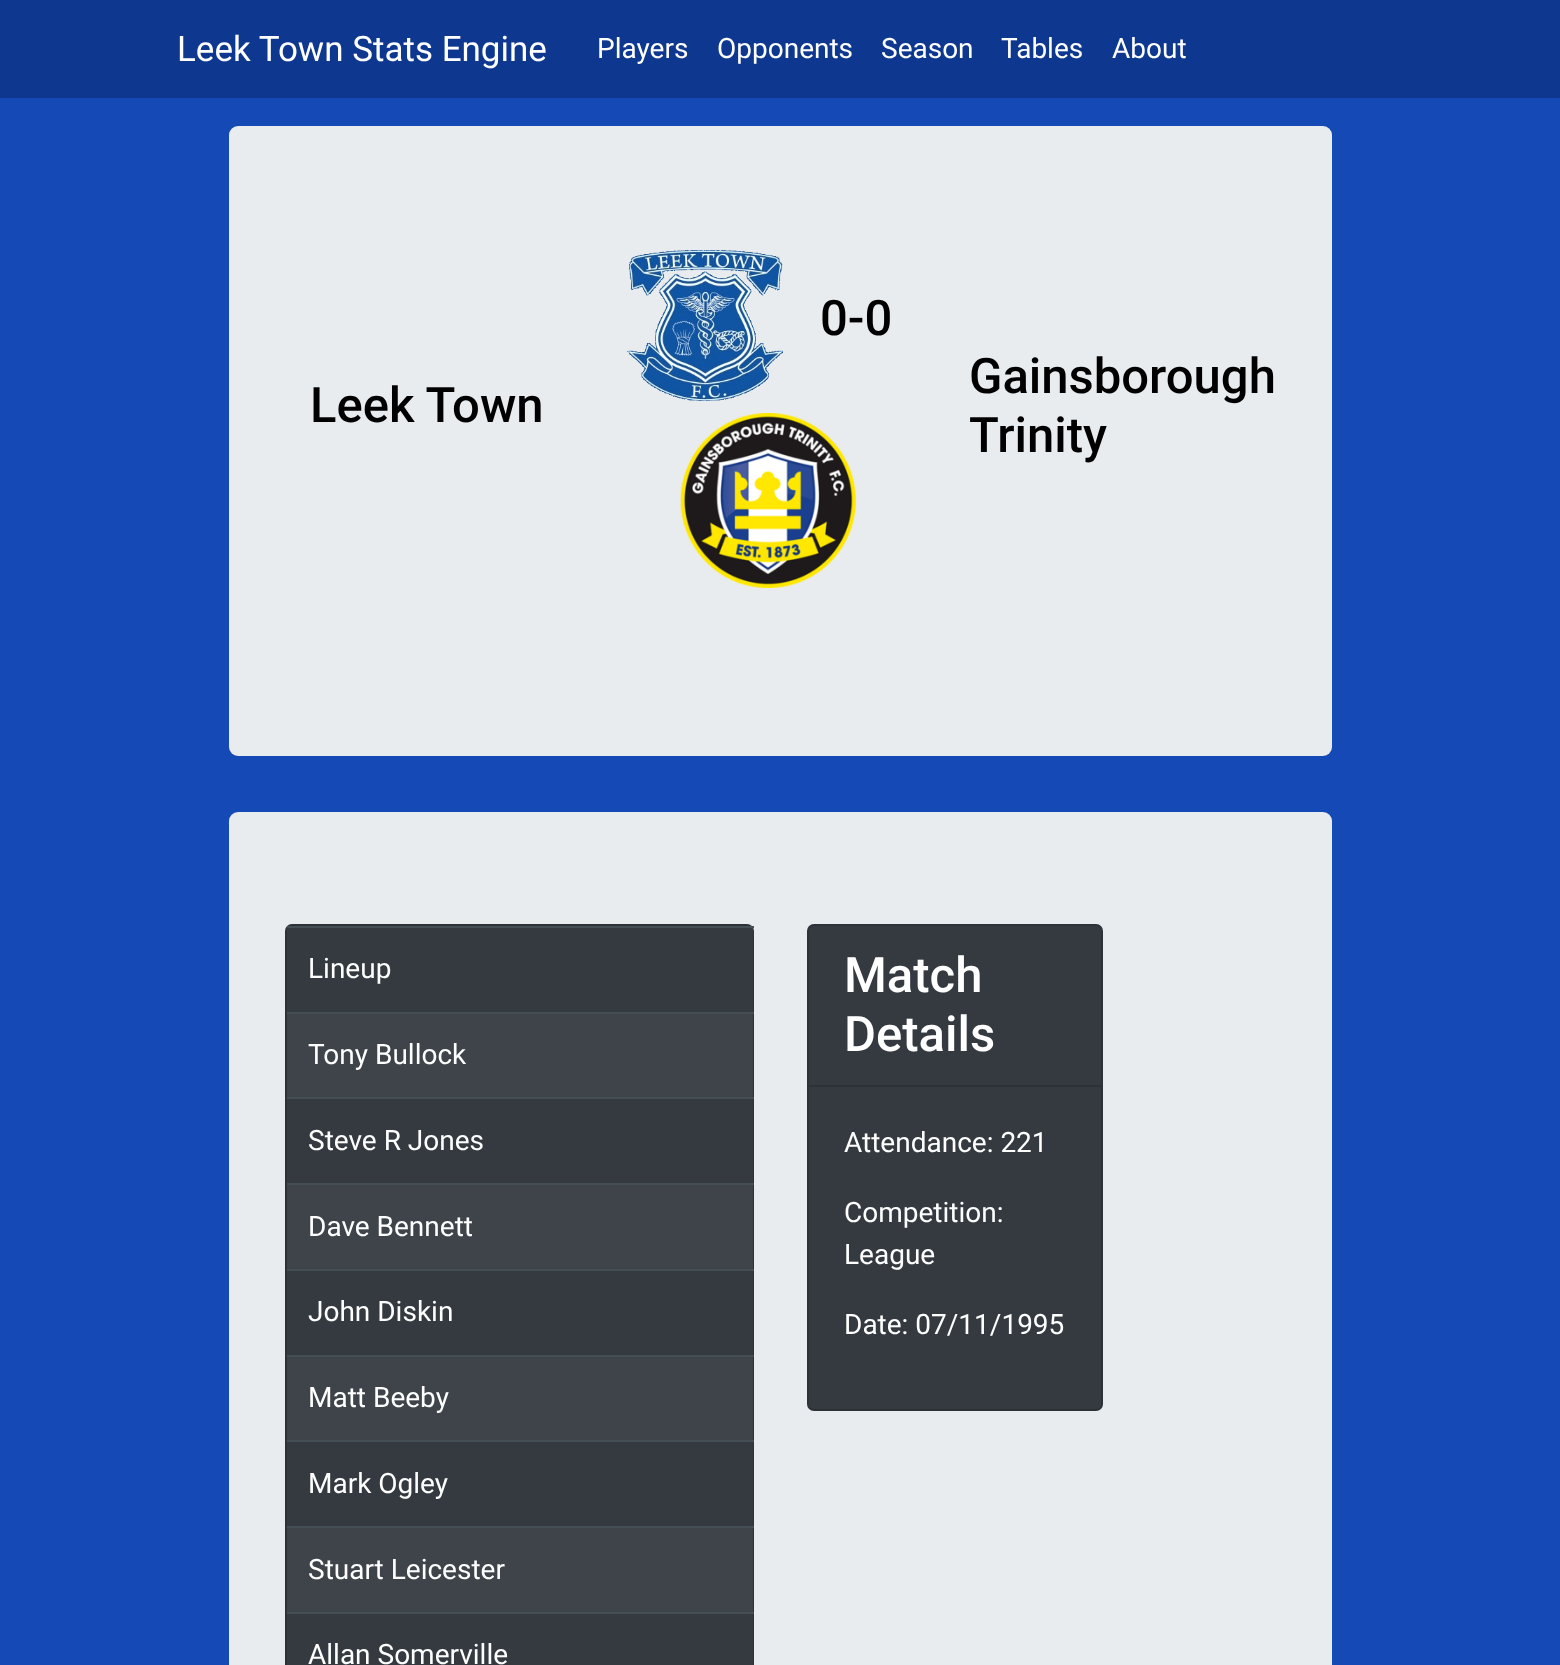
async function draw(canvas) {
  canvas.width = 1560
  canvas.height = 1665
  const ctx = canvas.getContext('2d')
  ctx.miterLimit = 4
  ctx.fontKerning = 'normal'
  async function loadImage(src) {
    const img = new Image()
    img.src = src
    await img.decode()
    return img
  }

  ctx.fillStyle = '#154ab6'
  ctx.fillRect(0, 0, 1560, 1665)
  ctx.fillStyle = '#0e388f'
  ctx.fillRect(0, 0, 1560, 98)
  ctx.font = '35px Roboto'
  ctx.fillStyle = '#fff'
  ctx.fillText('Leek Town Stats Engine', 177, 61)
  ctx.font = '28px Roboto'
  ctx.fillText('Players', 597, 58)
  ctx.fillText('Opponents', 717, 58)
  ctx.fillText('Season', 881, 58)
  ctx.fillText('Tables', 1001, 58)
  ctx.fillText('About', 1112, 58)
  ctx.fillStyle = '#e9ecef'
  ctx.beginPath()
  ctx.roundRect(229, 126, 1103, 630, 9)
  ctx.fill()
  ctx.drawImage(await loadImage('image0.png'), 627, 250, 156, 151)
  ctx.font = '500 49px Roboto'
  ctx.fillStyle = '#000'
  ctx.fillText('0-0', 820, 335)
  ctx.drawImage(await loadImage('image1.png'), 680, 413, 176, 175)
  ctx.fillText('Leek Town', 310, 422)
  ctx.fillText('Gainsborough', 969, 393)
  ctx.fillText('Trinity', 969, 452)
  ctx.fillStyle = '#e9ecef'
  ctx.beginPath()
  ctx.roundRect(229, 812, 1103, 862, 9)
  ctx.fill()
  ctx.fillStyle = '#343a40'
  ctx.beginPath()
  ctx.roundRect(285, 924, 469, 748, 7)
  ctx.fill()
  ctx.beginPath()
  ctx.roundRect(286, 925, 467, 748, 6)
  ctx.strokeStyle = '#0000001f'
  ctx.lineWidth = 2
  ctx.stroke()
  ctx.fillRect(287, 928, 466, 737)
  ctx.fillStyle = '#454d55'
  ctx.fillRect(287, 926, 467, 2)
  ctx.font = '28px Roboto'
  ctx.fillStyle = '#fff'
  ctx.fillText('Lineup', 308, 978)
  ctx.fillStyle = '#3e444a'
  ctx.fillRect(287, 1014, 466, 83)
  ctx.fillStyle = '#454d55'
  ctx.fillRect(287, 1012, 467, 2)
  ctx.fillStyle = '#fff'
  ctx.fillText('Tony Bullock', 308, 1064)
  ctx.fillStyle = '#454d55'
  ctx.fillRect(287, 1097, 467, 2)
  ctx.fillStyle = '#fff'
  ctx.fillText('Steve R Jones', 308, 1150)
  ctx.fillStyle = '#3e444a'
  ctx.fillRect(287, 1185, 466, 84)
  ctx.fillStyle = '#454d55'
  ctx.fillRect(287, 1183, 467, 2)
  ctx.fillStyle = '#fff'
  ctx.fillText('Dave Bennett', 308, 1236)
  ctx.fillStyle = '#454d55'
  ctx.fillRect(287, 1269, 467, 2)
  ctx.fillStyle = '#fff'
  ctx.fillText('John Diskin', 308, 1321)
  ctx.fillStyle = '#3e444a'
  ctx.fillRect(287, 1357, 466, 83)
  ctx.fillStyle = '#454d55'
  ctx.fillRect(287, 1355, 467, 2)
  ctx.fillStyle = '#fff'
  ctx.fillText('Matt Beeby', 308, 1407)
  ctx.fillStyle = '#454d55'
  ctx.fillRect(287, 1440, 467, 2)
  ctx.fillStyle = '#fff'
  ctx.fillText('Mark Ogley', 308, 1493)
  ctx.fillStyle = '#3e444a'
  ctx.fillRect(287, 1528, 466, 84)
  ctx.fillStyle = '#454d55'
  ctx.fillRect(287, 1526, 467, 2)
  ctx.fillStyle = '#fff'
  ctx.fillText('Stuart Leicester', 308, 1579)
  ctx.fillStyle = '#454d55'
  ctx.fillRect(287, 1612, 467, 2)
  ctx.fillStyle = '#fff'
  ctx.fillText('Allan Somerville', 308, 1664)
  ctx.fillStyle = '#343a40'
  ctx.beginPath()
  ctx.roundRect(807, 924, 296, 487, 7)
  ctx.fill()
  ctx.beginPath()
  ctx.roundRect(808, 925, 294, 485, 6)
  ctx.stroke()
  ctx.fillStyle = '#2c3136'
  ctx.fillRect(809, 1085, 292, 2)
  ctx.font = '500 49px Roboto'
  ctx.fillStyle = '#fff'
  ctx.fillText('Match', 844, 992)
  ctx.fillText('Details', 844, 1051)
  ctx.font = '28px Roboto'
  ctx.fillText('Attendance: 221', 844, 1152)
  ctx.fillText('Competition:', 844, 1222)
  ctx.fillText('League', 844, 1264)
  ctx.fillText('Date: 07/11/1995', 844, 1334)
}

draw(document.querySelector('canvas'))
